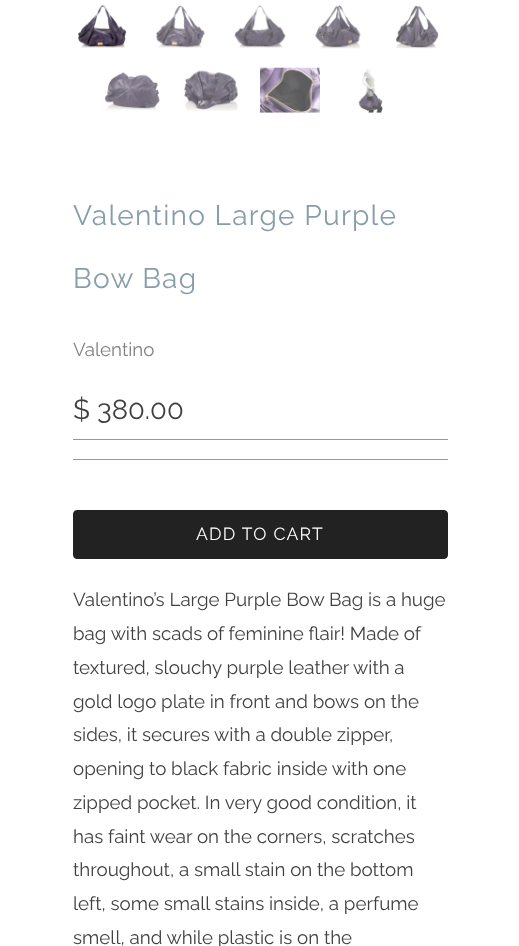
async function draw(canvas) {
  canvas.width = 519
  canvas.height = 946
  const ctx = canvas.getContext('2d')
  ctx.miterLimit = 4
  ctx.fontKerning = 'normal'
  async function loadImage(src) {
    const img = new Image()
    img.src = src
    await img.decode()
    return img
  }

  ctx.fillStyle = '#fff'
  ctx.fillRect(0, 0, 519, 946)
  ctx.drawImage(await loadImage('image0.png'), 78, 5, 49, 43)
  ctx.drawImage(await loadImage('image1.png'), 156, 5, 49, 43)
  ctx.drawImage(await loadImage('image2.png'), 234, 5, 52, 43)
  ctx.drawImage(await loadImage('image3.png'), 315, 5, 46, 44)
  ctx.drawImage(await loadImage('image4.png'), 396, 5, 43, 44)
  ctx.drawImage(await loadImage('image5.png'), 104, 72, 56, 39)
  ctx.drawImage(await loadImage('image6.png'), 184, 70, 55, 41)
  ctx.drawImage(await loadImage('image7.png'), 260, 67, 60, 46)
  ctx.drawImage(await loadImage('image8.png'), 358, 68, 25, 45)
  ctx.letterSpacing = '1.25px'
  ctx.font = '28.1px Raleway'
  ctx.fillStyle = '#889dab'
  ctx.fillText('Valentino Large Purple', 73, 225)
  ctx.fillText('Bow Bag', 73, 288)
  ctx.letterSpacing = '0px'
  ctx.font = '18.75px Raleway'
  ctx.fillStyle = '#808080'
  ctx.fillText('Valentino', 73, 356)
  ctx.font = '27.5px Raleway'
  ctx.fillStyle = '#404040'
  ctx.fillText('$ 380.00', 73, 419)
  ctx.fillStyle = '#809ead'
  ctx.fillRect(73, 439, 375, 1)
  ctx.fillRect(73, 459, 375, 1)
  ctx.fillStyle = '#222'
  ctx.beginPath()
  ctx.roundRect(73.5, 510.5, 374, 48, 3.5)
  ctx.fill()
  ctx.strokeStyle = '#222'
  ctx.stroke()
  ctx.letterSpacing = '1.25px'
  ctx.font = '17.5px Raleway'
  ctx.fillStyle = '#fff'
  ctx.fillText('ADD TO CART', 196, 540)
  ctx.letterSpacing = '0px'
  ctx.font = '18.75px Raleway'
  ctx.fillStyle = '#404040'
  ctx.fillText('Valentino’s Large Purple Bow Bag is a huge', 73, 606)
  ctx.fillText('bag with scads of feminine flair! Made of', 73, 640)
  ctx.fillText('textured, slouchy purple leather with a', 73, 674)
  ctx.fillText('gold logo plate in front and bows on the', 73, 708)
  ctx.fillText('sides, it secures with a double zipper,', 73, 741)
  ctx.fillText('opening to black fabric inside with one', 73, 775)
  ctx.fillText('zipped pocket. In very good condition, it', 73, 809)
  ctx.fillText('has faint wear on the corners, scratches', 73, 843)
  ctx.fillText('throughout, a small stain on the bottom', 73, 876)
  ctx.fillText('left, some small stains inside, a perfume', 73, 910)
  ctx.fillText('smell, and while plastic is on the', 73, 944)
}

draw(document.querySelector('canvas'))
